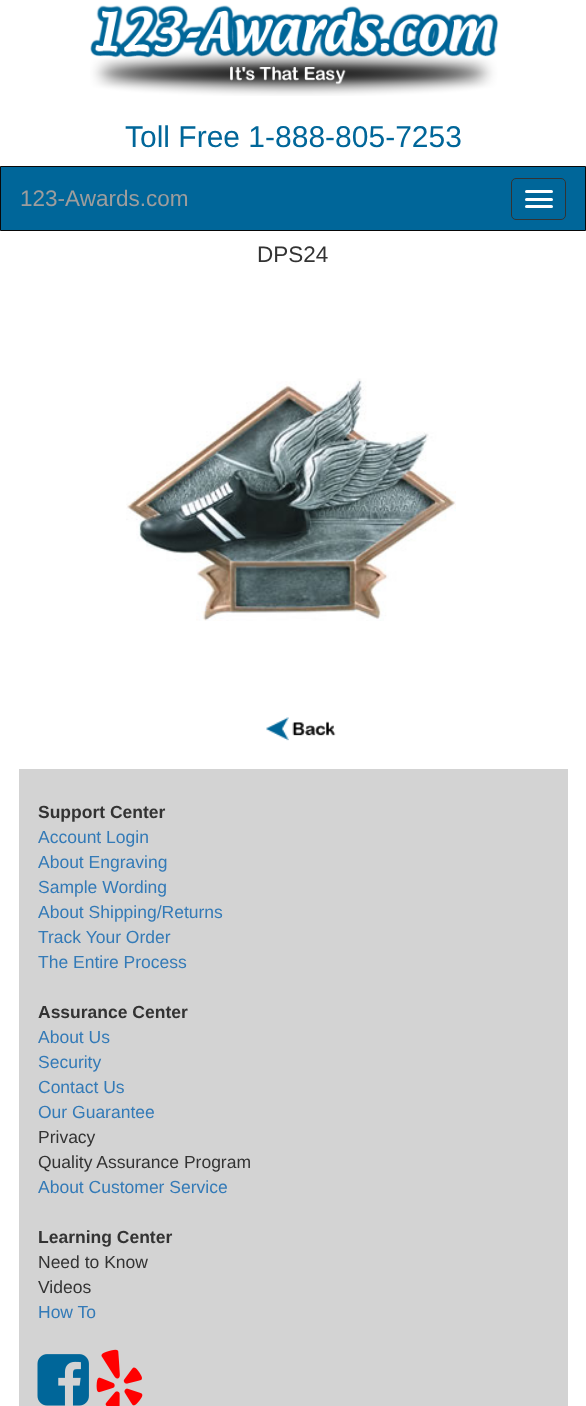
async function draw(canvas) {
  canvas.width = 586
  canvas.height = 1406
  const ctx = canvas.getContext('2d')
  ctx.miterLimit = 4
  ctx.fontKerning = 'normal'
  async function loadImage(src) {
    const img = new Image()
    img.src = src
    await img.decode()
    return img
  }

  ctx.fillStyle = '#fff'
  ctx.fillRect(0, 0, 586, 1406)
  ctx.drawImage(await loadImage('image0.png'), 90, 5, 409, 91)
  ctx.font = '30px Liberation Sans'
  ctx.fillStyle = '#069'
  ctx.fillText('Toll Free 1-888-805-7253', 125, 147)
  ctx.beginPath()
  ctx.rect(0.5, 166.5, 585, 64)
  ctx.fill()
  ctx.strokeStyle = '#080808'
  ctx.stroke()
  ctx.font = '22.5px Liberation Sans'
  ctx.fillStyle = '#9d9d9d'
  ctx.fillText('123-Awards.com', 20, 206)
  ctx.beginPath()
  ctx.roundRect(511.5, 178.5, 54, 41, 4.5)
  ctx.strokeStyle = '#333'
  ctx.stroke()
  ctx.fillStyle = '#fff'
  ctx.beginPath()
  ctx.roundRect(525, 190, 28, 3, 1.5)
  ctx.fill()
  ctx.beginPath()
  ctx.roundRect(525, 198, 28, 3, 1.5)
  ctx.fill()
  ctx.beginPath()
  ctx.roundRect(525, 205, 28, 3, 1.5)
  ctx.fill()
  ctx.fillStyle = '#333'
  ctx.fillText('DPS24', 257, 262)
  ctx.drawImage(await loadImage('image1.png'), 126, 378, 330, 243)
  ctx.drawImage(await loadImage('image2.png'), 266, 717, 70, 24)
  ctx.fillStyle = '#d3d3d3'
  ctx.fillRect(19, 769, 549, 637)
  ctx.font = 'bold 17.5px Liberation Sans'
  ctx.fillStyle = '#333'
  ctx.fillText('Support Center', 38, 818)
  ctx.font = '17.5px Liberation Sans'
  ctx.fillStyle = '#337ab7'
  ctx.fillText('Account Login', 38, 843)
  ctx.fillText('About Engraving', 38, 868)
  ctx.fillText('Sample Wording', 38, 893)
  ctx.fillText('About Shipping/Returns', 38, 918)
  ctx.fillText('Track Your Order', 38, 943)
  ctx.fillText('The Entire Process', 38, 968)
  ctx.font = 'bold 17.5px Liberation Sans'
  ctx.fillStyle = '#333'
  ctx.fillText('Assurance Center', 38, 1018)
  ctx.font = '17.5px Liberation Sans'
  ctx.fillStyle = '#337ab7'
  ctx.fillText('About Us', 38, 1043)
  ctx.fillText('Security', 38, 1068)
  ctx.fillText('Contact Us', 38, 1093)
  ctx.fillText('Our Guarantee', 38, 1118)
  ctx.fillStyle = '#333'
  ctx.fillText('Privacy', 38, 1143)
  ctx.fillText('Quality Assurance Program', 38, 1168)
  ctx.fillStyle = '#337ab7'
  ctx.fillText('About Customer Service', 38, 1193)
  ctx.font = 'bold 17.5px Liberation Sans'
  ctx.fillStyle = '#333'
  ctx.fillText('Learning Center', 38, 1243)
  ctx.font = '17.5px Liberation Sans'
  ctx.fillText('Need to Know', 38, 1268)
  ctx.fillText('Videos', 38, 1293)
  ctx.fillStyle = '#337ab7'
  ctx.fillText('How To', 38, 1318)
  ctx.drawImage(await loadImage('image3.png'), 37, 1354, 52, 52)
  ctx.drawImage(await loadImage('image4.png'), 96, 1349, 47, 57)
}

draw(document.querySelector('canvas'))
